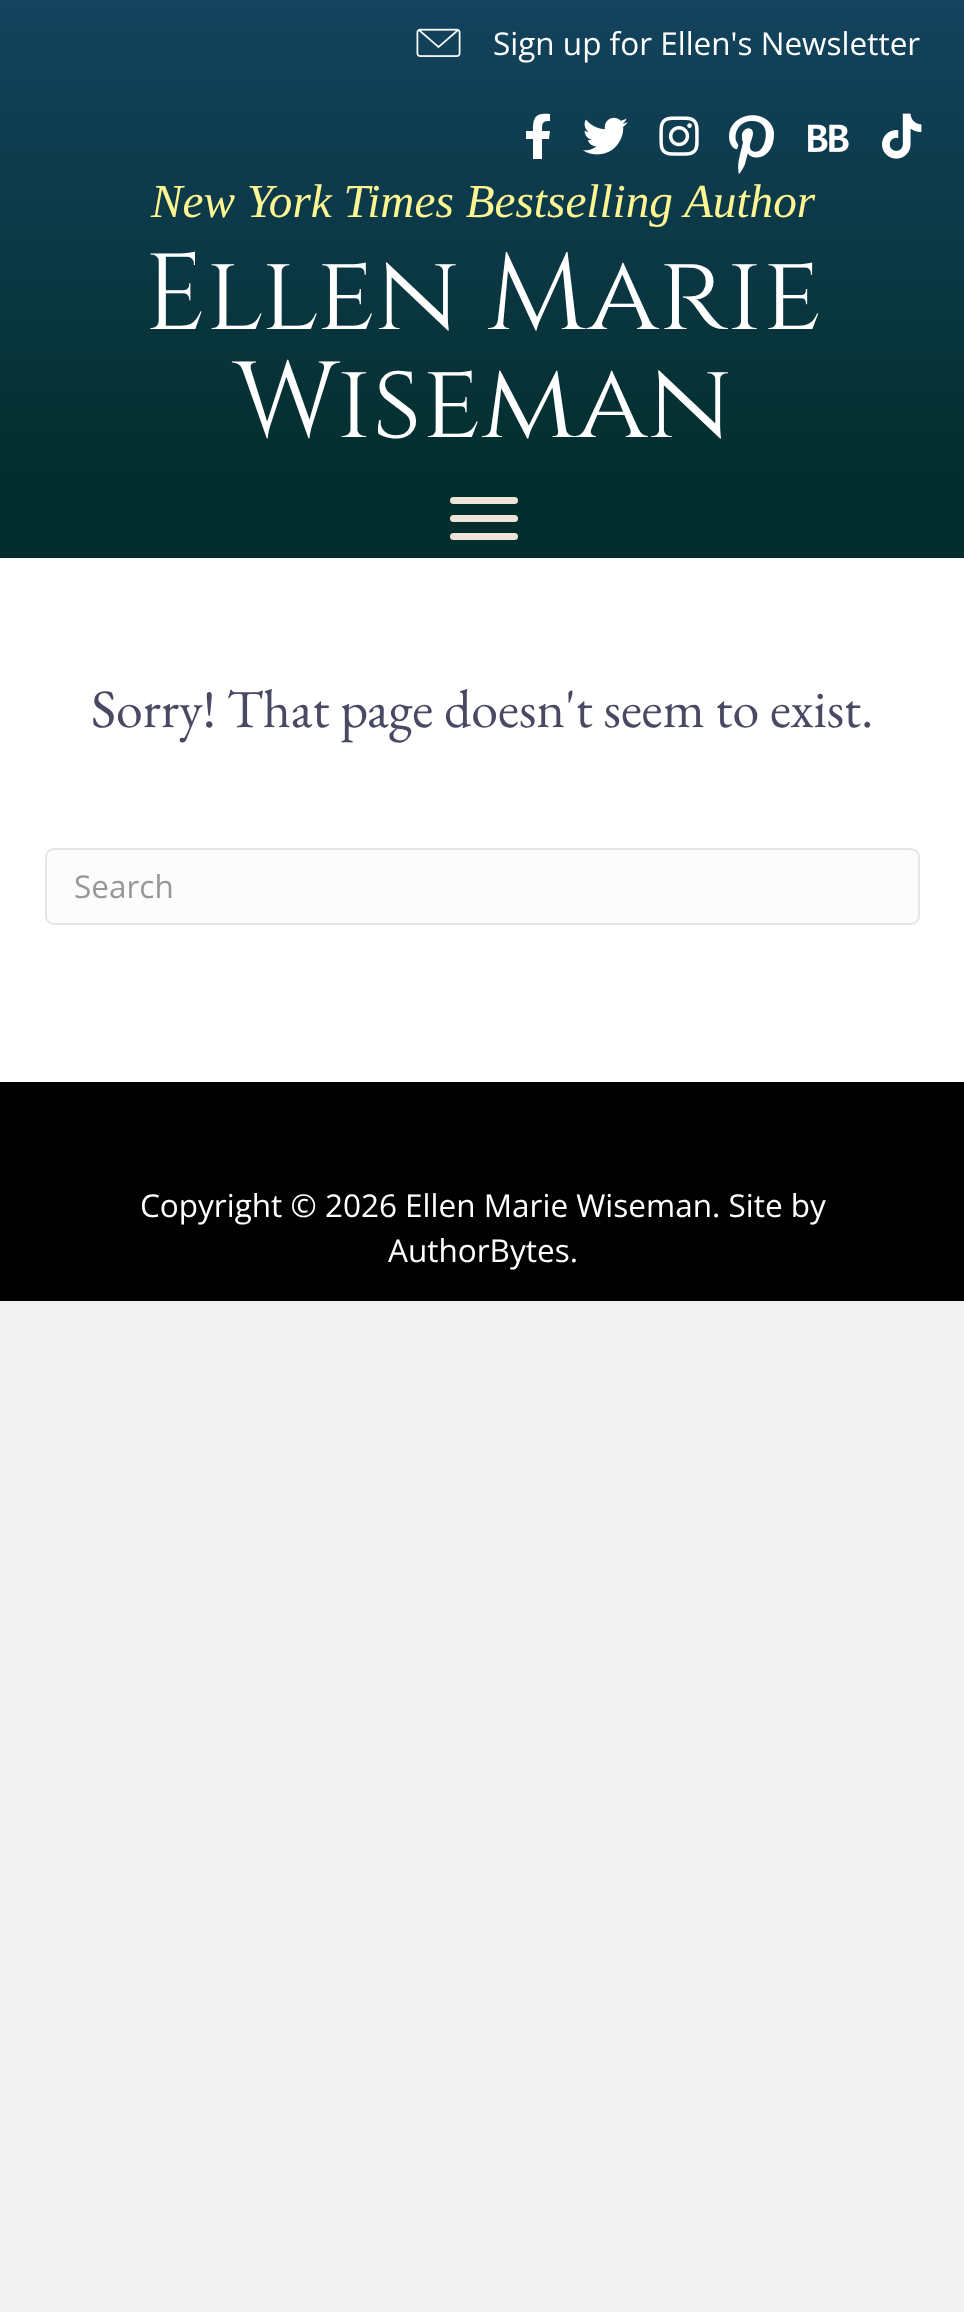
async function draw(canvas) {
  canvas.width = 964
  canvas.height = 2312
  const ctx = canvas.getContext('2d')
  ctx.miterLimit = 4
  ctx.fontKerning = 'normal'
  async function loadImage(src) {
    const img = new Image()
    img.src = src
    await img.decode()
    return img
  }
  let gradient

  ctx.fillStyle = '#f2f2f2'
  ctx.fillRect(0, 0, 964, 2312)
  gradient = ctx.createLinearGradient(483, 0, 483, 482)
  gradient.addColorStop(0, '#13435e')
  gradient.addColorStop(1, '#032e2d')
  ctx.fillStyle = gradient
  ctx.fillRect(0, 0, 964, 482)
  ctx.drawImage(await loadImage('image0.png'), 416, 28, 45, 29)
  ctx.font = '31.5px Open Sans'
  ctx.fillStyle = '#fff'
  ctx.fillText('Sign up for Ellen\'s Newsletter', 493, 55)
  ctx.beginPath()
  ctx.moveTo(549, 139)
  ctx.lineTo(542, 139)
  ctx.lineTo(542, 159)
  ctx.lineTo(533, 159)
  ctx.lineTo(533, 139)
  ctx.lineTo(526, 139)
  ctx.lineTo(526, 131)
  ctx.lineTo(533, 131)
  ctx.bezierCurveTo(533, 116, 536, 113, 550, 114)
  ctx.lineTo(550, 121)
  ctx.bezierCurveTo(542, 121, 542, 123, 542, 131)
  ctx.lineTo(550, 131)
  ctx.closePath()
  ctx.fill()
  ctx.drawImage(await loadImage('image1.png'), 583, 117, 45, 38)
  ctx.drawImage(await loadImage('image2.png'), 659, 116, 40, 40)
  ctx.drawImage(await loadImage('image3.png'), 729, 115, 45, 59)
  ctx.drawImage(await loadImage('image4.png'), 808, 124, 41, 28)
  ctx.drawImage(await loadImage('image5.png'), 882, 113, 40, 46)
  ctx.font = 'italic 47.25px Liberation Serif'
  ctx.fillStyle = '#fff592'
  ctx.fillText('New York Times Bestselling Author', 151, 217)
  ctx.font = '108px Cinzel'
  ctx.fillStyle = '#fff'
  ctx.fillText('Ellen Marie', 144, 329)
  ctx.fillText('Wiseman', 233, 437)
  ctx.fillStyle = '#032e2d'
  ctx.fillRect(0, 482, 964, 76)
  ctx.fillStyle = '#eee3d7'
  ctx.beginPath()
  ctx.roundRect(450, 515, 68, 7, 3.5)
  ctx.fill()
  ctx.beginPath()
  ctx.roundRect(450, 497, 68, 7, 3.5)
  ctx.fill()
  ctx.beginPath()
  ctx.roundRect(450, 533, 68, 7, 3.5)
  ctx.fill()
  ctx.fillStyle = '#fff'
  ctx.fillRect(0, 558, 964, 524)
  ctx.font = '54px EB Garamond'
  ctx.fillStyle = '#494963'
  ctx.fillText('Sorry! That page doesn\'t seem to exist.', 91, 727)
  ctx.fillStyle = '#fcfcfc'
  ctx.beginPath()
  ctx.roundRect(46, 849, 873, 75, 8)
  ctx.fill()
  ctx.strokeStyle = '#e6e6e6'
  ctx.lineWidth = 2
  ctx.stroke()
  ctx.font = '31.5px Open Sans'
  ctx.fillStyle = '#979797'
  ctx.fillText('Search', 74, 898)
  ctx.fillStyle = '#000'
  ctx.fillRect(0, 1082, 964, 219)
  ctx.fillStyle = '#fff'
  ctx.fillText('Copyright © 2026 Ellen Marie Wiseman. Site by', 140, 1217)
  ctx.fillText('AuthorBytes.', 388, 1262)
}

draw(document.querySelector('canvas'))
